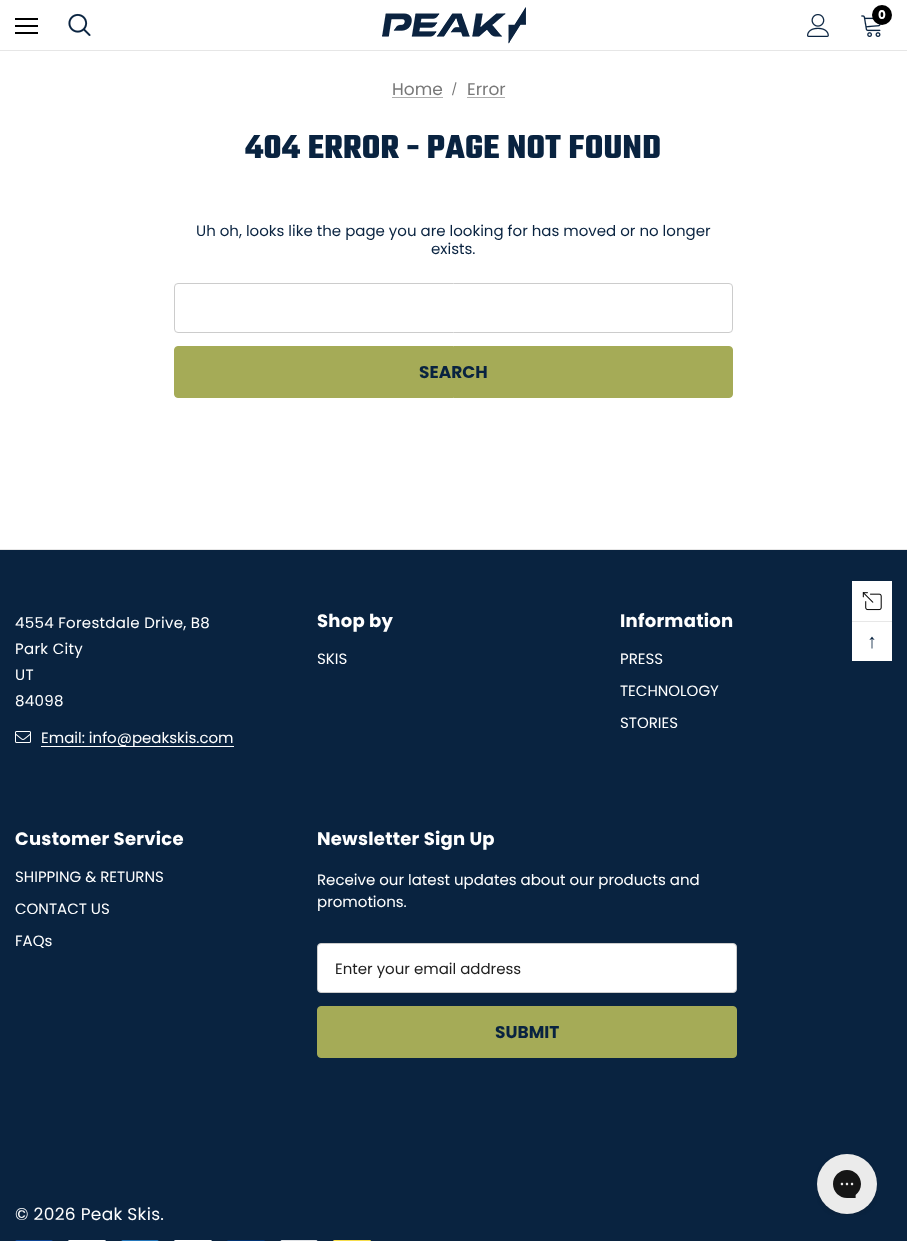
async function draw(canvas) {
  canvas.width = 907
  canvas.height = 1241
  const ctx = canvas.getContext('2d')
  ctx.miterLimit = 4
  ctx.fontKerning = 'normal'
  async function loadImage(src) {
    const img = new Image()
    img.src = src
    await img.decode()
    return img
  }

  ctx.fillStyle = '#fff'
  ctx.fillRect(0, 0, 907, 1241)
  ctx.fillStyle = '#e6e6e6'
  ctx.fillRect(0, 50, 907, 1)
  ctx.fillStyle = '#000'
  ctx.fillRect(15, 25, 23, 2)
  ctx.fillRect(15, 18, 23, 2)
  ctx.fillRect(15, 32, 23, 2)
  ctx.drawImage(await loadImage('image0.png'), 68, 13, 23, 23)
  ctx.drawImage(await loadImage('image1.png'), 382, 7, 144, 37)
  ctx.drawImage(await loadImage('image2.png'), 807, 14, 22, 23)
  ctx.drawImage(await loadImage('image3.png'), 861, 15, 20, 22)
  ctx.beginPath()
  ctx.arc(882, 15, 10, 0, 2 * Math.PI)
  ctx.fill()
  ctx.font = 'bold 12px Poppins'
  ctx.fillStyle = '#fff'
  ctx.fillText('0', 878, 19)
  ctx.fillStyle = '#aeaeae'
  ctx.fillRect(392, 97, 51, 1)
  ctx.font = '17px Poppins'
  ctx.fillStyle = '#787878'
  ctx.fillText('Home', 392, 95)
  ctx.fillStyle = '#757575'
  ctx.beginPath()
  ctx.moveTo(455.5, 82)
  ctx.lineTo(456.5, 82.5)
  ctx.lineTo(453, 95.5)
  ctx.lineTo(452, 95)
  ctx.closePath()
  ctx.fill()
  ctx.fillStyle = '#aeaeae'
  ctx.fillRect(467, 97, 38, 1)
  ctx.fillStyle = '#787878'
  ctx.fillText('Error', 467, 95)
  ctx.letterSpacing = '0.25px'
  ctx.font = 'bold 36px Teko'
  ctx.fillStyle = '#092340'
  ctx.fillText('404 ERROR - PAGE NOT FOUND', 245, 158)
  ctx.letterSpacing = '0px'
  ctx.font = '15px Poppins'
  ctx.fillText('Uh oh, looks like the page you are looking for has moved or no longer', 196, 236)
  ctx.fillText('exists.', 431, 254)
  ctx.beginPath()
  ctx.roundRect(174.5, 283.5, 558, 49, 3.5)
  ctx.strokeStyle = '#ccc'
  ctx.stroke()
  ctx.fillStyle = '#a5ab57'
  ctx.beginPath()
  ctx.roundRect(174.5, 346.5, 558, 51, 3.5)
  ctx.fill()
  ctx.strokeStyle = '#a5ab57'
  ctx.stroke()
  ctx.font = 'bold 17px Poppins'
  ctx.fillStyle = '#092340'
  ctx.fillText('SEARCH', 419, 378)
  ctx.fillRect(0, 550, 907, 691)
  ctx.fillStyle = '#e6e6e6'
  ctx.fillRect(0, 549, 907, 1)
  ctx.letterSpacing = '0.3px'
  ctx.font = '15px Poppins'
  ctx.fillStyle = '#fff'
  ctx.fillText('4554 Forestdale Drive, B8', 15, 628)
  ctx.fillText('Park City', 15, 654)
  ctx.fillText('UT', 15, 680)
  ctx.fillText('84098', 15, 706)
  ctx.drawImage(await loadImage('image4.png'), 15, 731, 16, 12)
  ctx.fillRect(41, 746, 193, 1)
  ctx.letterSpacing = '0px'
  ctx.fillText('Email: info@peakskis.com', 41, 743)
  ctx.letterSpacing = '0.25px'
  ctx.font = 'bold 18px Poppins'
  ctx.fillText('Shop by', 317, 627)
  ctx.letterSpacing = '0px'
  ctx.font = '15px Poppins'
  ctx.fillText('SKIS', 317, 664)
  ctx.letterSpacing = '0.25px'
  ctx.font = 'bold 18px Poppins'
  ctx.fillText('Information', 620, 627)
  ctx.letterSpacing = '0px'
  ctx.font = '15px Poppins'
  ctx.fillText('PRESS', 620, 664)
  ctx.fillText('TECHNOLOGY', 620, 696)
  ctx.fillText('STORIES', 620, 728)
  ctx.letterSpacing = '0.25px'
  ctx.font = 'bold 18px Poppins'
  ctx.fillText('Customer Service', 15, 845)
  ctx.letterSpacing = '0px'
  ctx.font = '15px Poppins'
  ctx.fillText('SHIPPING & RETURNS', 15, 882)
  ctx.fillText('CONTACT US', 15, 914)
  ctx.fillText('FAQs', 15, 946)
  ctx.letterSpacing = '0.25px'
  ctx.font = 'bold 18px Poppins'
  ctx.fillText('Newsletter Sign Up', 317, 845)
  ctx.letterSpacing = '0px'
  ctx.font = '15px Poppins'
  ctx.fillText('Receive our latest updates about our products and', 317, 885)
  ctx.fillText('promotions.', 317, 907)
  ctx.beginPath()
  ctx.roundRect(317.5, 943.5, 419, 49, 3.5)
  ctx.fill()
  ctx.strokeStyle = '#ccc'
  ctx.stroke()
  ctx.fillStyle = '#202020'
  ctx.fillText('Enter your email address', 335, 974)
  ctx.fillStyle = '#a5ab57'
  ctx.beginPath()
  ctx.roundRect(317.5, 1006.5, 419, 51, 3.5)
  ctx.fill()
  ctx.strokeStyle = '#a5ab57'
  ctx.stroke()
  ctx.font = 'bold 17px Poppins'
  ctx.fillStyle = '#092340'
  ctx.fillText('SUBMIT', 495, 1038)
  ctx.letterSpacing = '0.3px'
  ctx.font = '17px Poppins'
  ctx.fillStyle = '#fff'
  ctx.fillText('© 2026 Peak Skis.', 15, 1220)
  ctx.drawImage(await loadImage('image5.png'), 15, 1240, 38, 1)
  ctx.beginPath()
  ctx.roundRect(68, 1240, 38, 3, 2)
  ctx.fill()
  ctx.drawImage(await loadImage('image6.png'), 121, 1240, 38, 1)
  ctx.beginPath()
  ctx.roundRect(174, 1240, 38, 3, 2)
  ctx.fill()
  ctx.fillStyle = '#013474'
  ctx.beginPath()
  ctx.roundRect(227, 1240, 38, 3, 2)
  ctx.fill()
  ctx.drawImage(await loadImage('image7.png'), 280, 1240, 38, 1)
  ctx.fillStyle = '#f7de4b'
  ctx.beginPath()
  ctx.roundRect(333, 1240, 38, 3, 2)
  ctx.fill()
  ctx.drawImage(await loadImage('image8.png'), 369, 1240, 2, 1)
  ctx.fillStyle = '#fff'
  ctx.fillRect(852, 581, 40, 80)
  ctx.drawImage(await loadImage('image9.png'), 862, 592, 20, 19)
  ctx.fillStyle = '#e7e7e7'
  ctx.fillRect(852, 621, 40, 1)
  ctx.letterSpacing = '0px'
  ctx.font = '20px Liberation Sans'
  ctx.fillStyle = '#092340'
  ctx.fillText('↑', 867, 648)
  ctx.drawImage(await loadImage('image10.png'), 817, 1154, 60, 61)
}

draw(document.querySelector('canvas'))
